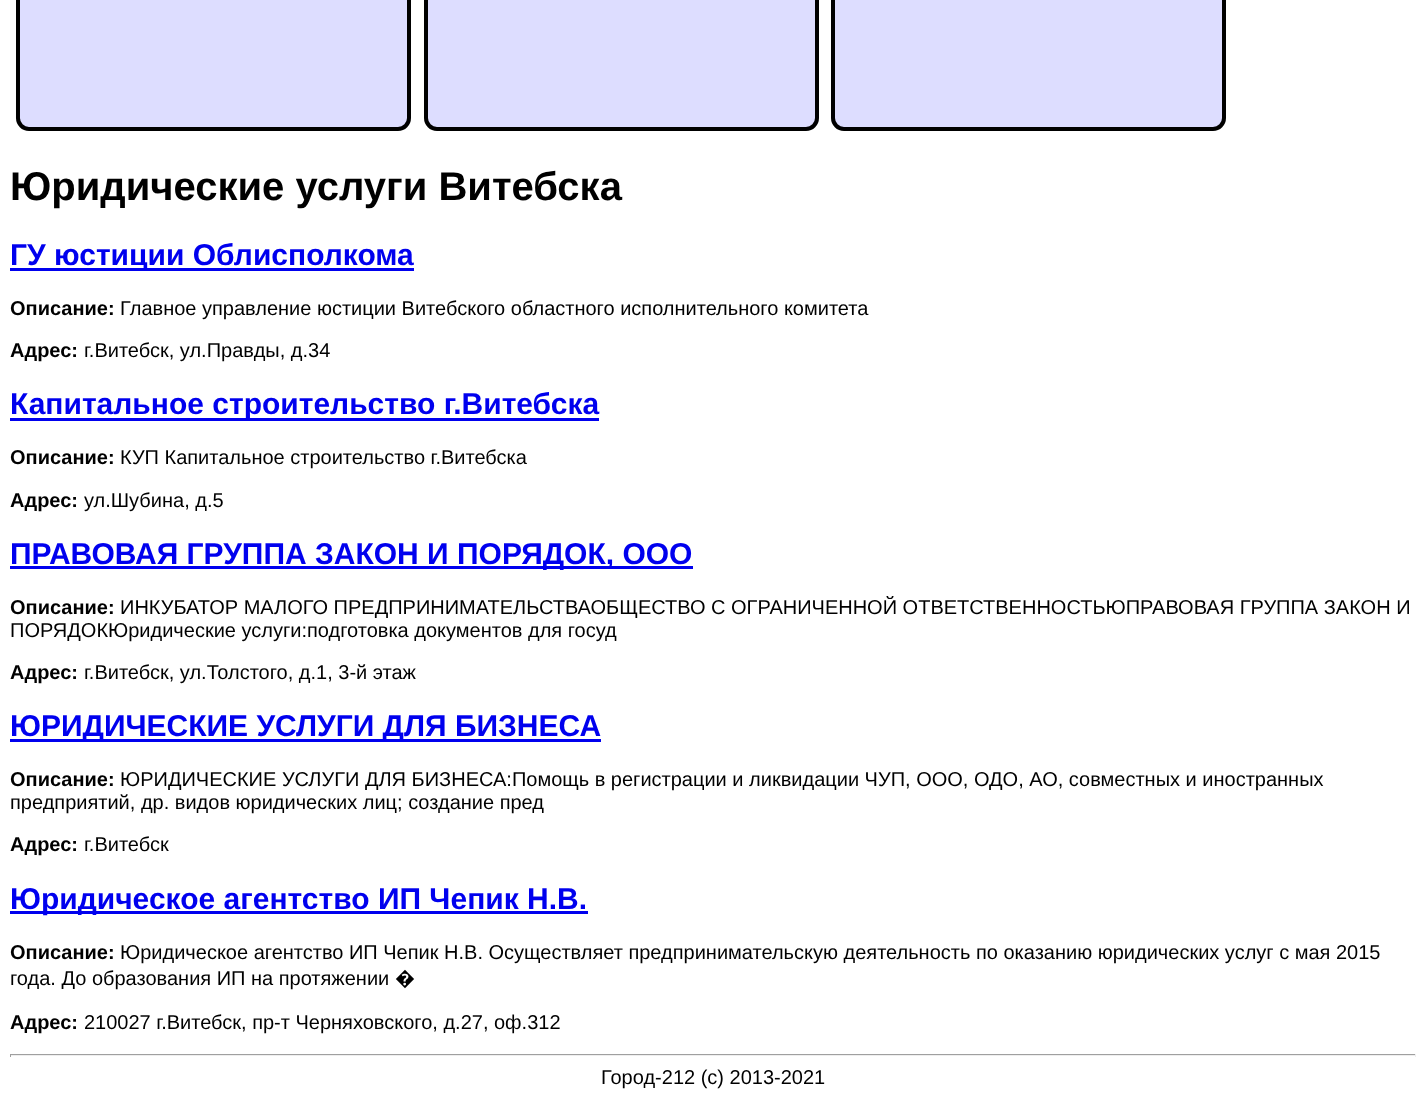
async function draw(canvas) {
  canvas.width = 1426
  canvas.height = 1098
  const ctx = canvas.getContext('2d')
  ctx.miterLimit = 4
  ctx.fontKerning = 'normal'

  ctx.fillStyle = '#fff'
  ctx.fillRect(0, 0, 1426, 1098)
  ctx.fillStyle = '#ddf'
  ctx.beginPath()
  ctx.roundRect(18, -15, 391, 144, 11)
  ctx.fill()
  ctx.strokeStyle = '#000'
  ctx.lineWidth = 4
  ctx.stroke()
  ctx.beginPath()
  ctx.roundRect(426, -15, 391, 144, 11)
  ctx.fill()
  ctx.stroke()
  ctx.beginPath()
  ctx.roundRect(833, -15, 391, 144, 11)
  ctx.fill()
  ctx.stroke()
  ctx.font = 'bold 40px Liberation Sans'
  ctx.fillStyle = '#000'
  ctx.fillText('Юридические услуги Витебска', 10, 200)
  ctx.fillStyle = '#00e'
  ctx.fillRect(10, 268, 404, 3)
  ctx.font = 'bold 30px Liberation Sans'
  ctx.fillText('ГУ юстиции Облисполкома', 10, 265)
  ctx.font = 'bold 20px Liberation Sans'
  ctx.fillStyle = '#000'
  ctx.fillText('Описание:', 10, 315)
  ctx.font = '20px Liberation Sans'
  ctx.fillText('Главное управление юстиции Витебского областного исполнительного комитета', 120, 315)
  ctx.font = 'bold 20px Liberation Sans'
  ctx.fillText('Адрес:', 10, 357)
  ctx.font = '20px Liberation Sans'
  ctx.fillText('г.Витебск, ул.Правды, д.34', 84, 357)
  ctx.fillStyle = '#00e'
  ctx.fillRect(10, 418, 589, 3)
  ctx.font = 'bold 30px Liberation Sans'
  ctx.fillText('Капитальное строительство г.Витебска', 10, 414)
  ctx.font = 'bold 20px Liberation Sans'
  ctx.fillStyle = '#000'
  ctx.fillText('Описание:', 10, 464)
  ctx.font = '20px Liberation Sans'
  ctx.fillText('КУП Капитальное строительство г.Витебска', 120, 464)
  ctx.font = 'bold 20px Liberation Sans'
  ctx.fillText('Адрес:', 10, 507)
  ctx.font = '20px Liberation Sans'
  ctx.fillText('ул.Шубина, д.5', 84, 507)
  ctx.fillStyle = '#00e'
  ctx.fillRect(10, 566, 683, 3)
  ctx.font = 'bold 30px Liberation Sans'
  ctx.fillText('ПРАВОВАЯ ГРУППА ЗАКОН И ПОРЯДОК, ООО', 10, 564)
  ctx.font = 'bold 20px Liberation Sans'
  ctx.fillStyle = '#000'
  ctx.fillText('Описание:', 10, 614)
  ctx.font = '20px Liberation Sans'
  ctx.fillText('ИНКУБАТОР МАЛОГО ПРЕДПРИНИМАТЕЛЬСТВАОБЩЕСТВО С ОГРАНИЧЕННОЙ ОТВЕТСТВЕННОСТЬЮПРАВОВАЯ ГРУППА ЗАКОН И', 120, 614)
  ctx.fillText('ПОРЯДОКЮридические услуги:подготовка документов для госуд', 10, 637)
  ctx.font = 'bold 20px Liberation Sans'
  ctx.fillText('Адрес:', 10, 679)
  ctx.font = '20px Liberation Sans'
  ctx.fillText('г.Витебск, ул.Толстого, д.1, 3-й этаж', 84, 679)
  ctx.fillStyle = '#00e'
  ctx.fillRect(10, 739, 591, 3)
  ctx.font = 'bold 30px Liberation Sans'
  ctx.fillText('ЮРИДИЧЕСКИЕ УСЛУГИ ДЛЯ БИЗНЕСА', 10, 736)
  ctx.font = 'bold 20px Liberation Sans'
  ctx.fillStyle = '#000'
  ctx.fillText('Описание:', 10, 786)
  ctx.font = '20px Liberation Sans'
  ctx.fillText('ЮРИДИЧЕСКИЕ УСЛУГИ ДЛЯ БИЗНЕСА:Помощь в регистрации и ликвидации ЧУП, ООО, ОДО, АО, совместных и иностранных', 120, 786)
  ctx.fillText('предприятий, др. видов юридических лиц; создание пред', 10, 809)
  ctx.font = 'bold 20px Liberation Sans'
  ctx.fillText('Адрес:', 10, 851)
  ctx.font = '20px Liberation Sans'
  ctx.fillText('г.Витебск', 84, 851)
  ctx.fillStyle = '#00e'
  ctx.fillRect(10, 911, 578, 3)
  ctx.font = 'bold 30px Liberation Sans'
  ctx.fillText('Юридическое агентство ИП Чепик Н.В.', 10, 909)
  ctx.font = 'bold 20px Liberation Sans'
  ctx.fillStyle = '#000'
  ctx.fillText('Описание:', 10, 959)
  ctx.font = '20px Liberation Sans'
  ctx.fillText('Юридическое агентство ИП Чепик Н.В. Осуществляет предпринимательскую деятельность по оказанию юридических услуг с мая 2015', 120, 959)
  ctx.fillText('года. До образования ИП на протяжении', 10, 985)
  ctx.font = '20px Noto Sans'
  ctx.fillText('�', 395, 985)
  ctx.font = 'bold 20px Liberation Sans'
  ctx.fillText('Адрес:', 10, 1029)
  ctx.font = '20px Liberation Sans'
  ctx.fillText('210027 г.Витебск, пр-т Черняховского, д.27, оф.312', 84, 1029)
  ctx.fillStyle = '#9f9f9f'
  ctx.fillRect(10, 1054, 1406, 1)
  ctx.fillStyle = '#eee'
  ctx.fillRect(1415, 1054, 1, 3)
  ctx.fillRect(10, 1055, 1406, 1)
  ctx.fillStyle = '#9f9f9f'
  ctx.fillRect(10, 1054, 1, 3)
  ctx.fillStyle = '#000'
  ctx.fillText('Город-212 (c) 2013-2021', 601, 1084)
}

draw(document.querySelector('canvas'))
